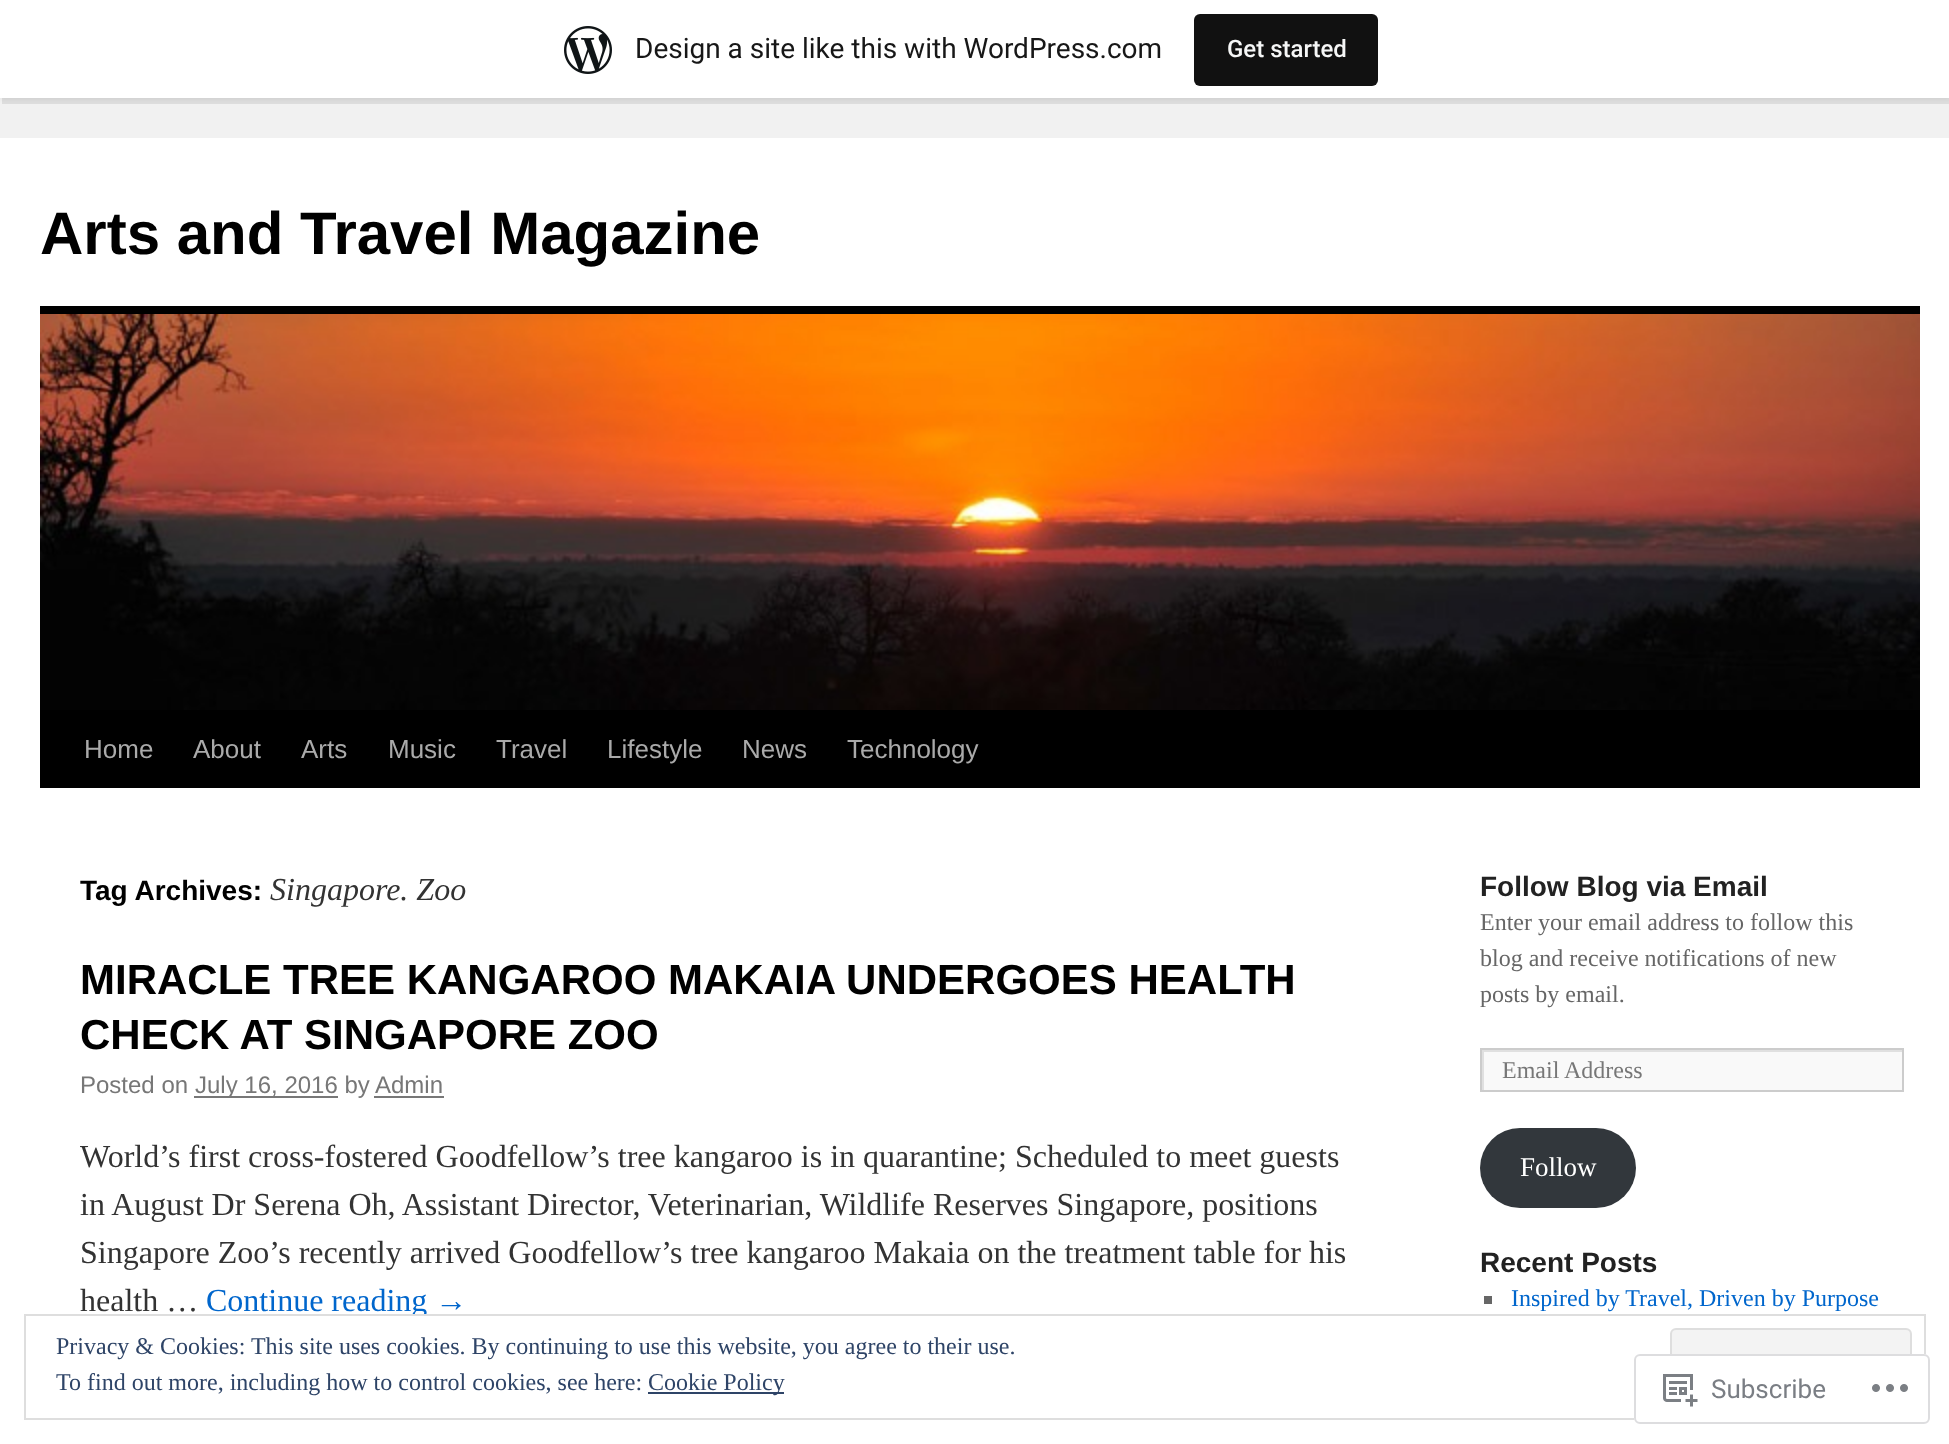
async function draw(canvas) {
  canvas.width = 1949
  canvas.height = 1444
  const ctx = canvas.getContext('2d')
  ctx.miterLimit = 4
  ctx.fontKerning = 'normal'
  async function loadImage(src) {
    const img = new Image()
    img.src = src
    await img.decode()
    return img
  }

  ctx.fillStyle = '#f1f1f1'
  ctx.fillRect(0, 0, 1949, 1444)
  ctx.fillStyle = '#0000000d'
  ctx.filter = 'blur(2px)'
  ctx.beginPath()
  ctx.rect(0, 2, 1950, 98)
  ctx.fill()
  ctx.filter = 'none'
  ctx.fillStyle = '#00000014'
  ctx.beginPath()
  ctx.moveTo(2, 98)
  ctx.lineTo(2, 104)
  ctx.lineTo(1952, 104)
  ctx.lineTo(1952, 6)
  ctx.lineTo(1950, 6)
  ctx.lineTo(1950, 98)
  ctx.closePath()
  ctx.fill()
  ctx.fillStyle = '#fff'
  ctx.fillRect(0, 0, 1949, 98)
  ctx.drawImage(await loadImage('image0.png'), 564, 26, 48, 48)
  ctx.font = '28px Roboto'
  ctx.fillStyle = '#171717'
  ctx.fillText('Design a site like this with WordPress.com', 635, 58)
  ctx.fillStyle = '#111'
  ctx.beginPath()
  ctx.roundRect(1194, 14, 184, 72, 6)
  ctx.fill()
  ctx.font = '500 24px Roboto'
  ctx.fillStyle = '#f6f7f7'
  ctx.fillText('Get started', 1227, 57)
  ctx.fillStyle = '#fff'
  ctx.fillRect(0, 138, 1949, 1306)
  ctx.font = 'bold 60px Liberation Sans'
  ctx.fillStyle = '#000'
  ctx.fillText('Arts and Travel Magazine', 40, 254)
  ctx.fillRect(40, 306, 1880, 8)
  ctx.fillRect(40, 710, 1880, 78)
  ctx.drawImage(await loadImage('image1.png'), 40, 314, 1880, 396)
  ctx.font = '26px Liberation Sans'
  ctx.fillStyle = '#aaa'
  ctx.fillText('Home', 84, 758)
  ctx.fillText('About', 193, 758)
  ctx.fillText('Arts', 301, 758)
  ctx.fillText('Music', 388, 758)
  ctx.fillText('Travel', 496, 758)
  ctx.fillText('Lifestyle', 607, 758)
  ctx.fillText('News', 742, 758)
  ctx.fillText('Technology', 847, 758)
  ctx.font = 'bold 28px Liberation Sans'
  ctx.fillStyle = '#000'
  ctx.fillText('Tag Archives:', 80, 900)
  ctx.font = 'italic 32px Liberation Serif'
  ctx.fillStyle = '#333'
  ctx.fillText('Singapore. Zoo', 270, 900)
  ctx.font = 'bold 42px Liberation Sans'
  ctx.fillStyle = '#000'
  ctx.fillText('MIRACLE TREE KANGAROO MAKAIA UNDERGOES HEALTH', 80, 994)
  ctx.fillText('CHECK AT SINGAPORE ZOO', 80, 1049)
  ctx.font = '24px Liberation Sans'
  ctx.fillStyle = '#777'
  ctx.fillText('Posted on', 80, 1093)
  ctx.fillRect(194, 1096, 144, 2)
  ctx.fillText('July 16, 2016 by', 195, 1093)
  ctx.fillText('Admin', 375, 1093)
  ctx.fillRect(374, 1096, 70, 2)
  ctx.font = '32px Liberation Serif'
  ctx.fillStyle = '#333'
  ctx.fillText('World’s first cross-fostered Goodfellow’s tree kangaroo is in quarantine; Scheduled to meet guests', 80, 1167)
  ctx.fillText('in August Dr Serena Oh, Assistant Director, Veterinarian, Wildlife Reserves Singapore, positions', 80, 1215)
  ctx.fillText('Singapore Zoo’s recently arrived Goodfellow’s tree kangaroo Makaia on the treatment table for his', 80, 1263)
  ctx.fillText('health …', 80, 1311)
  ctx.fillStyle = '#06c'
  ctx.fillText('Continue reading →', 206, 1311)
  ctx.font = 'bold 28px Liberation Sans'
  ctx.fillStyle = '#222'
  ctx.fillText('Follow Blog via Email', 1480, 896)
  ctx.font = '24px Liberation Serif'
  ctx.fillStyle = '#666'
  ctx.fillText('Enter your email address to follow this', 1480, 930)
  ctx.fillText('blog and receive notifications of new', 1480, 966)
  ctx.fillText('posts by email.', 1480, 1002)
  ctx.fillStyle = '#f9f9f9'
  ctx.fillRect(1484, 1052, 418, 38)
  ctx.save()
  ctx.beginPath()
  ctx.rect(1482, 1050, 420, 40)
  ctx.clip()
  ctx.fillStyle = '#e0e0e0'
  ctx.beginPath()
  ctx.moveTo(1284, 852)
  ctx.lineTo(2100, 852)
  ctx.lineTo(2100, 1288)
  ctx.lineTo(1284, 1288)
  ctx.closePath()
  ctx.moveTo(1484, 1052)
  ctx.lineTo(1904, 1052)
  ctx.lineTo(1904, 1092)
  ctx.lineTo(1484, 1092)
  ctx.closePath()
  ctx.fill('evenodd')
  ctx.restore()
  ctx.strokeStyle = '#ccc'
  ctx.lineWidth = 2
  ctx.strokeRect(1481, 1049, 422, 42)
  ctx.fillStyle = '#777'
  ctx.fillText('Email Address', 1502, 1078)
  ctx.fillStyle = '#32373c'
  ctx.beginPath()
  ctx.roundRect(1480, 1128, 156, 80, 40)
  ctx.fill()
  ctx.font = '27px Liberation Serif'
  ctx.fillStyle = '#fff'
  ctx.fillText('Follow', 1520, 1176)
  ctx.font = 'bold 28px Liberation Sans'
  ctx.fillStyle = '#222'
  ctx.fillText('Recent Posts', 1480, 1272)
  ctx.fillStyle = '#666'
  ctx.fillRect(1484, 1296, 8, 8)
  ctx.font = '24px Liberation Serif'
  ctx.fillStyle = '#06c'
  ctx.fillText('Inspired by Travel, Driven by Purpose', 1511, 1306)
  ctx.fillStyle = '#fff'
  ctx.fillRect(413, 1316, 13, 2)
  ctx.strokeStyle = '#dedede'
  ctx.strokeRect(25, 1315, 1900, 104)
  ctx.fillStyle = '#2e4467'
  ctx.fillText('Privacy & Cookies: This site uses cookies. By continuing to use this website, you agree to their use.', 56, 1354)
  ctx.fillStyle = '#f3f3f3'
  ctx.beginPath()
  ctx.roundRect(1671, 1329, 240, 76, 5)
  ctx.fill()
  ctx.stroke()
  ctx.fillStyle = '#2e4467'
  ctx.fillText('To find out more, including how to control cookies, see here:', 56, 1390)
  ctx.fillRect(648, 1392, 136, 2)
  ctx.fillText('Cookie Policy', 648, 1390)
  ctx.fillStyle = '#fffffffa'
  ctx.beginPath()
  ctx.roundRect(1634, 1354, 296, 70, 6)
  ctx.fill()
  ctx.beginPath()
  ctx.roundRect(1635, 1355, 294, 68, 5)
  ctx.strokeStyle = '#dcdcdefa'
  ctx.stroke()
  ctx.drawImage(await loadImage('image2.png'), 1663, 1374, 35, 33)
  ctx.font = '26px Roboto'
  ctx.fillStyle = '#7a7e84'
  ctx.fillText('Subscribe', 1711, 1398)
  ctx.drawImage(await loadImage('image3.png'), 1872, 1384, 36, 8)
}

draw(document.querySelector('canvas'))
